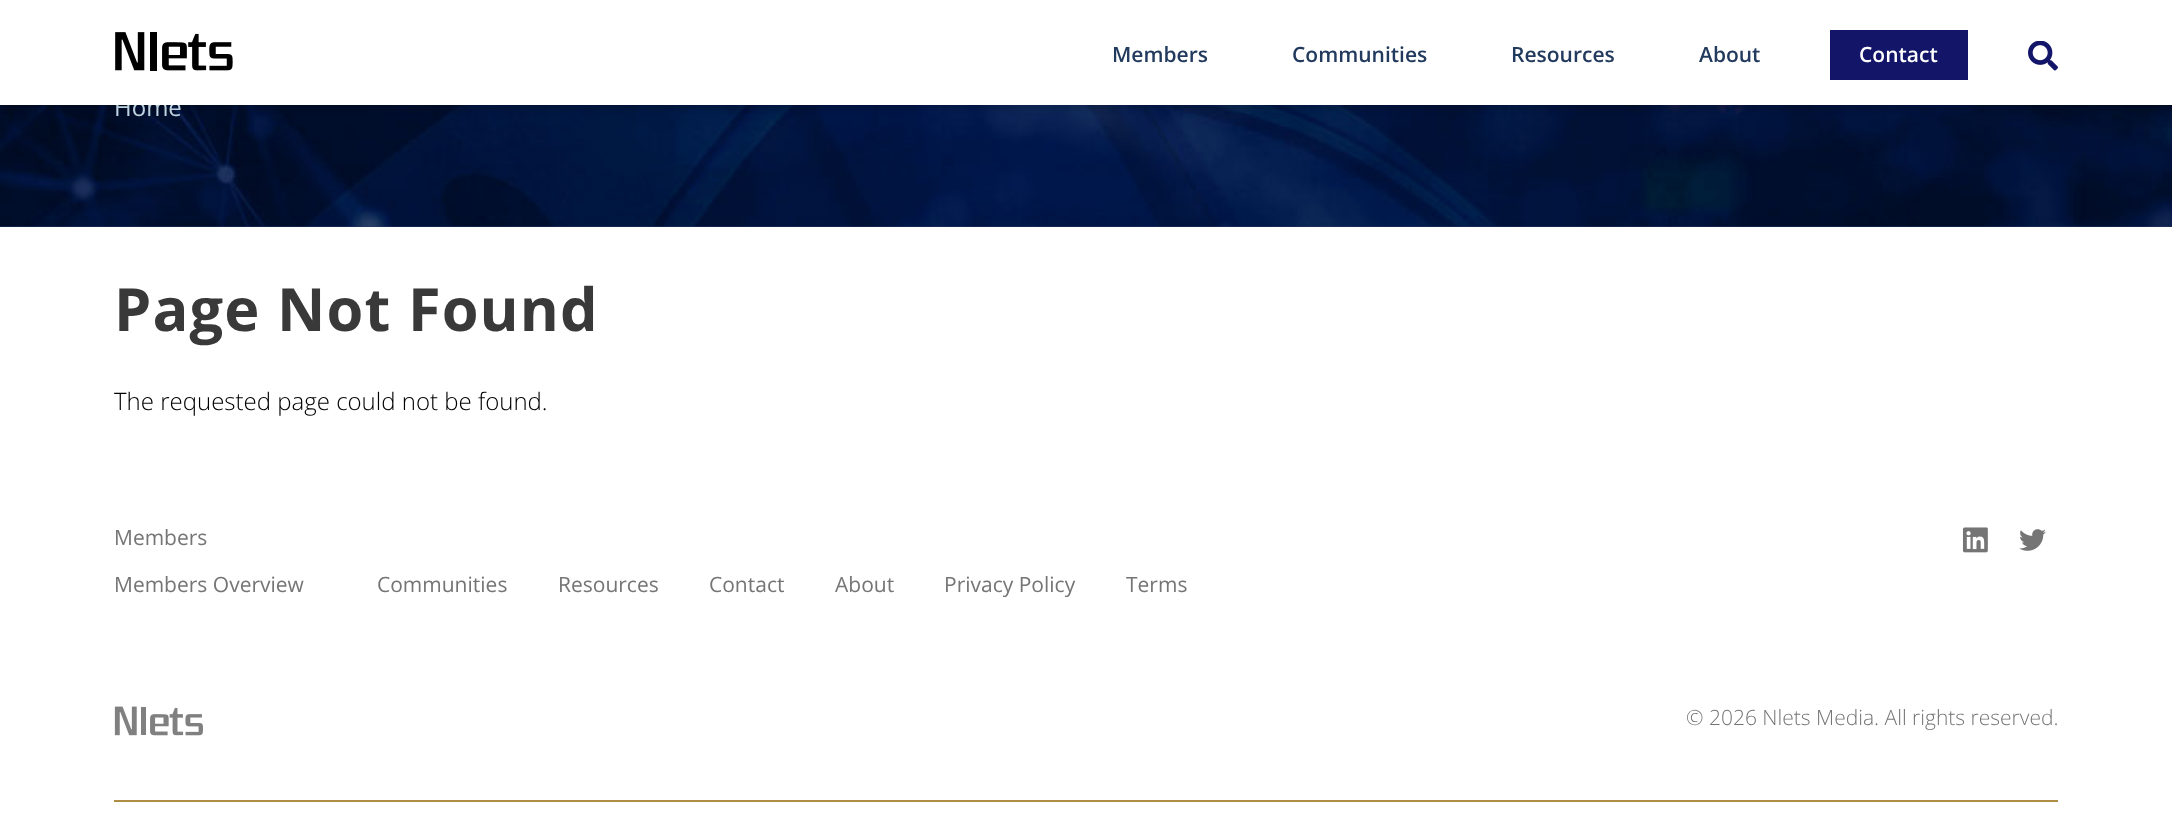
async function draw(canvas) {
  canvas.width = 2172
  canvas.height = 834
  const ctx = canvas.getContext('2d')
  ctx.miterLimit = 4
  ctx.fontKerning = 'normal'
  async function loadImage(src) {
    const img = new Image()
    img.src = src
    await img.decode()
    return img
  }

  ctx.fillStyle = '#fff'
  ctx.fillRect(0, 0, 2172, 834)
  ctx.fillStyle = '#223a5e'
  ctx.fillRect(0, 226, 2172, 1)
  ctx.drawImage(await loadImage('image2.png'), 0, 105, 2172, 122)
  ctx.fillStyle = '#00000029'
  ctx.filter = 'blur(3px)'
  ctx.beginPath()
  ctx.rect(0, 3, 2172, 105)
  ctx.fill()
  ctx.filter = 'none'
  ctx.font = '24px Open Sans'
  ctx.fillStyle = '#bed5e1'
  ctx.fillText('Home', 114, 116)
  ctx.fillStyle = '#fff'
  ctx.fillRect(0, 0, 2172, 105)
  ctx.drawImage(await loadImage('image0.png'), 115, 32, 118, 39)
  ctx.font = '600 21px Open Sans'
  ctx.fillStyle = '#223a5e'
  ctx.fillText('Members', 1112, 62)
  ctx.fillText('Communities', 1292, 62)
  ctx.fillText('Resources', 1511, 62)
  ctx.fillText('About', 1699, 62)
  ctx.fillStyle = '#121568'
  ctx.fillRect(1830, 30, 138, 50)
  ctx.fillStyle = '#fff'
  ctx.fillText('Contact', 1859, 62)
  ctx.drawImage(await loadImage('image1.png'), 2028, 41, 30, 30)
  ctx.letterSpacing = '1.1px'
  ctx.font = 'bold 59.5px Open Sans'
  ctx.fillStyle = '#393939'
  ctx.fillText('Page Not Found', 114, 331)
  ctx.letterSpacing = '0px'
  ctx.font = '300 24px Open Sans'
  ctx.fillStyle = '#000'
  ctx.fillText('The requested page could not be found.', 114, 410)
  ctx.font = '21px Open Sans'
  ctx.fillStyle = '#757575'
  ctx.fillText('Members', 114, 545)
  ctx.fillText('Members Overview', 114, 592)
  ctx.fillText('Communities', 377, 592)
  ctx.fillText('Resources', 558, 592)
  ctx.fillText('Contact', 709, 592)
  ctx.fillText('About', 835, 592)
  ctx.fillText('Privacy Policy', 944, 592)
  ctx.fillText('Terms', 1126, 592)
  ctx.drawImage(await loadImage('image3.png'), 1962, 527, 26, 26)
  ctx.drawImage(await loadImage('image4.png'), 2019, 529, 27, 22)
  ctx.drawImage(await loadImage('image5.png'), 114, 706, 89, 30)
  ctx.font = '300 21px Open Sans'
  ctx.fillText('© 2026 Nlets Media. All rights reserved.', 1686, 725)
  ctx.fillStyle = '#b08d44'
  ctx.fillRect(114, 800, 1944, 2)
}

draw(document.querySelector('canvas'))
